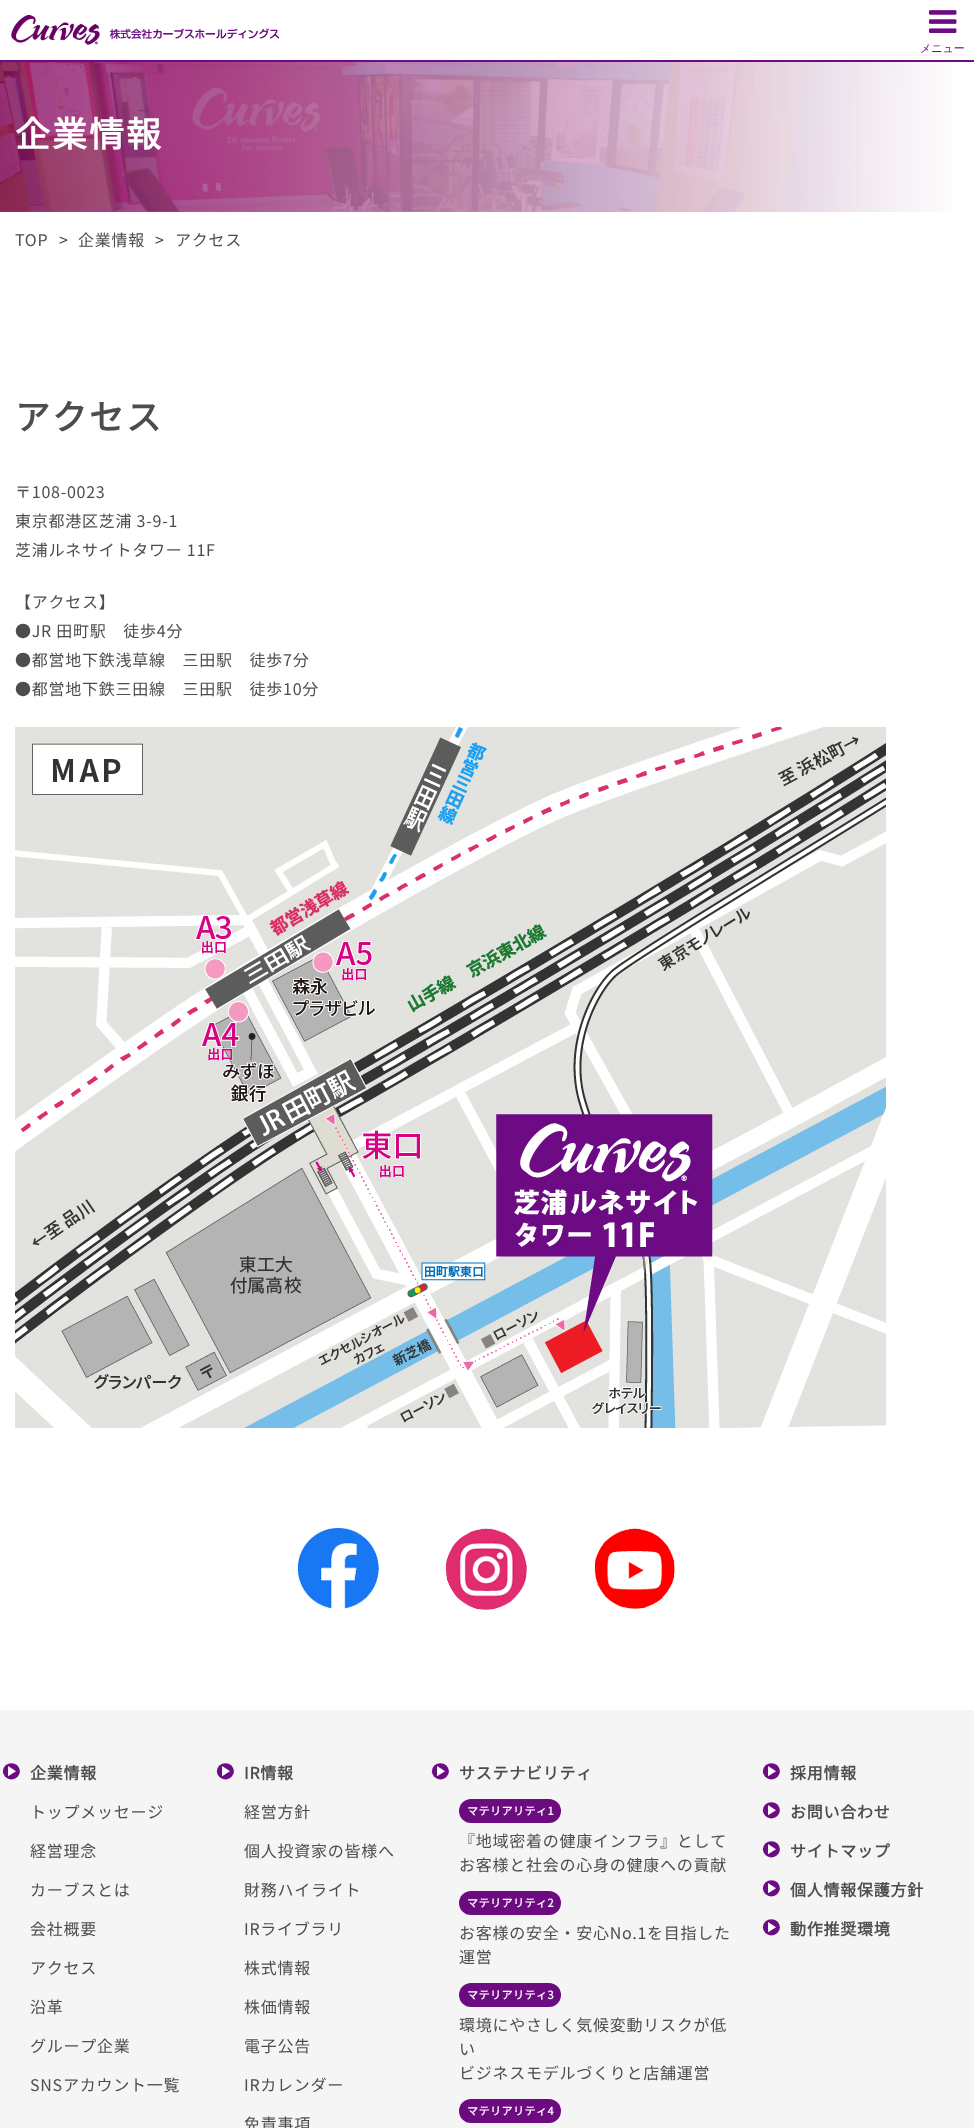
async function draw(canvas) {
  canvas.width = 974
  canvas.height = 2128
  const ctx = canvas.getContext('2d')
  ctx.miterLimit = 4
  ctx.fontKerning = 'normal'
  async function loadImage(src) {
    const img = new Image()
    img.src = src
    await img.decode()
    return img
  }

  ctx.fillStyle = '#fff'
  ctx.fillRect(0, 0, 974, 2128)
  ctx.fillStyle = '#6c0b83'
  ctx.fillRect(0, 60, 974, 2)
  ctx.drawImage(await loadImage('image0.png'), 11, 15, 269, 30)
  ctx.drawImage(await loadImage('image1.png'), 929, 10, 28, 23)
  ctx.font = '500 11px WenQuanYi Zen Hei'
  ctx.fillText('メニュー', 920, 52)
  ctx.drawImage(await loadImage('image2.png'), 0, 62, 953, 150)
  ctx.letterSpacing = '2px'
  ctx.font = 'bold 35px Noto Sans JP'
  ctx.fillStyle = '#fff'
  ctx.fillText('企業情報', 15, 147)
  ctx.letterSpacing = '0.75px'
  ctx.font = '100 16px Noto Sans JP'
  ctx.fillStyle = '#4d4d4d'
  ctx.fillText('TOP', 15, 246)
  ctx.fillText('>', 59, 246)
  ctx.fillText('企業情報', 78, 246)
  ctx.fillText('>', 155, 246)
  ctx.fillText('アクセス', 175, 246)
  ctx.letterSpacing = '2px'
  ctx.font = 'bold 35px Noto Sans JP'
  ctx.fillText('アクセス', 15, 430)
  ctx.letterSpacing = '0.75px'
  ctx.font = '100 16px Noto Sans JP'
  ctx.fillText('〒108-0023', 15, 498)
  ctx.fillText('東京都港区芝浦 3-9-1', 15, 527)
  ctx.fillText('芝浦ルネサイトタワー 11F', 15, 556)
  ctx.fillText('【アクセス】', 15, 608)
  ctx.fillText('●JR 田町駅　徒歩4分', 15, 637)
  ctx.fillText('●都営地下鉄浅草線　三田駅　徒歩7分', 15, 666)
  ctx.fillText('●都営地下鉄三田線　三田駅　徒歩10分', 15, 695)
  ctx.drawImage(await loadImage('image3.png'), 15, 727, 871, 701)
  ctx.drawImage(await loadImage('image4.png'), 297, 1528, 82, 81)
  ctx.drawImage(await loadImage('image5.png'), 446, 1528, 81, 82)
  ctx.drawImage(await loadImage('image6.png'), 594, 1528, 81, 81)
  ctx.fillStyle = '#f5f5f5'
  ctx.fillRect(0, 1710, 974, 418)
  ctx.drawImage(await loadImage('image7.png'), 2, 1763, 18, 17)
  ctx.font = 'bold 16px Noto Sans JP'
  ctx.fillStyle = '#4d4d4d'
  ctx.fillText('企業情報', 30, 1779)
  ctx.font = '100 16px Noto Sans JP'
  ctx.fillText('トップメッセージ', 30, 1818)
  ctx.fillText('経営理念', 30, 1857)
  ctx.fillText('カーブスとは', 30, 1896)
  ctx.fillText('会社概要', 30, 1935)
  ctx.fillText('アクセス', 30, 1974)
  ctx.fillText('沿革', 30, 2013)
  ctx.fillText('グループ企業', 30, 2052)
  ctx.fillText('SNSアカウント一覧', 30, 2091)
  ctx.drawImage(await loadImage('image7.png'), 216, 1763, 18, 17)
  ctx.font = 'bold 16px Noto Sans JP'
  ctx.fillText('IR情報', 244, 1779)
  ctx.font = '100 16px Noto Sans JP'
  ctx.fillText('経営方針', 244, 1818)
  ctx.fillText('個人投資家の皆様へ', 244, 1857)
  ctx.fillText('財務ハイライト', 244, 1896)
  ctx.fillText('IRライブラリ', 244, 1935)
  ctx.fillText('株式情報', 244, 1974)
  ctx.fillText('株価情報', 244, 2013)
  ctx.fillText('電子公告', 244, 2052)
  ctx.fillText('IRカレンダー', 244, 2091)
  ctx.fillText('免責事項', 244, 2130)
  ctx.drawImage(await loadImage('image7.png'), 431, 1763, 18, 17)
  ctx.font = 'bold 16px Noto Sans JP'
  ctx.fillText('サステナビリティ', 459, 1779)
  ctx.fillStyle = '#6c0b80'
  ctx.beginPath()
  ctx.roundRect(459, 1799, 102, 24, 12)
  ctx.fill()
  ctx.letterSpacing = '0.5px'
  ctx.font = 'bold 11px Noto Sans JP'
  ctx.fillStyle = '#fff'
  ctx.fillText('マテリアリティ1', 467, 1815)
  ctx.letterSpacing = '0.75px'
  ctx.font = '100 16px Noto Sans JP'
  ctx.fillStyle = '#4d4d4d'
  ctx.fillText('『地域密着の健康インフラ』として', 459, 1847)
  ctx.fillText('お客様と社会の心身の健康への貢献', 459, 1871)
  ctx.fillStyle = '#6c0b80'
  ctx.beginPath()
  ctx.roundRect(459, 1891, 102, 24, 12)
  ctx.fill()
  ctx.letterSpacing = '0.5px'
  ctx.font = 'bold 11px Noto Sans JP'
  ctx.fillStyle = '#fff'
  ctx.fillText('マテリアリティ2', 467, 1907)
  ctx.letterSpacing = '0.75px'
  ctx.font = '100 16px Noto Sans JP'
  ctx.fillStyle = '#4d4d4d'
  ctx.fillText('お客様の安全・安心No.1を目指した', 459, 1939)
  ctx.fillText('運営', 459, 1963)
  ctx.fillStyle = '#6c0b80'
  ctx.beginPath()
  ctx.roundRect(459, 1983, 102, 24, 12)
  ctx.fill()
  ctx.letterSpacing = '0.5px'
  ctx.font = 'bold 11px Noto Sans JP'
  ctx.fillStyle = '#fff'
  ctx.fillText('マテリアリティ3', 467, 1999)
  ctx.letterSpacing = '0.75px'
  ctx.font = '100 16px Noto Sans JP'
  ctx.fillStyle = '#4d4d4d'
  ctx.fillText('環境にやさしく気候変動リスクが低', 459, 2031)
  ctx.fillText('い', 459, 2055)
  ctx.fillText('ビジネスモデルづくりと店舗運営', 459, 2079)
  ctx.fillStyle = '#6c0b80'
  ctx.beginPath()
  ctx.roundRect(459, 2099, 102, 24, 12)
  ctx.fill()
  ctx.letterSpacing = '0.5px'
  ctx.font = 'bold 11px Noto Sans JP'
  ctx.fillStyle = '#fff'
  ctx.fillText('マテリアリティ4', 467, 2115)
  ctx.drawImage(await loadImage('image8.png'), 762, 1763, 18, 17)
  ctx.letterSpacing = '0.75px'
  ctx.font = 'bold 16px Noto Sans JP'
  ctx.fillStyle = '#4d4d4d'
  ctx.fillText('採用情報', 790, 1779)
  ctx.drawImage(await loadImage('image9.png'), 762, 1802, 18, 17)
  ctx.fillText('お問い合わせ', 790, 1818)
  ctx.drawImage(await loadImage('image9.png'), 762, 1841, 18, 17)
  ctx.fillText('サイトマップ', 790, 1857)
  ctx.drawImage(await loadImage('image9.png'), 762, 1880, 18, 17)
  ctx.fillText('個人情報保護方針', 790, 1896)
  ctx.drawImage(await loadImage('image9.png'), 762, 1919, 18, 17)
  ctx.fillText('動作推奨環境', 790, 1935)
}

draw(document.querySelector('canvas'))
